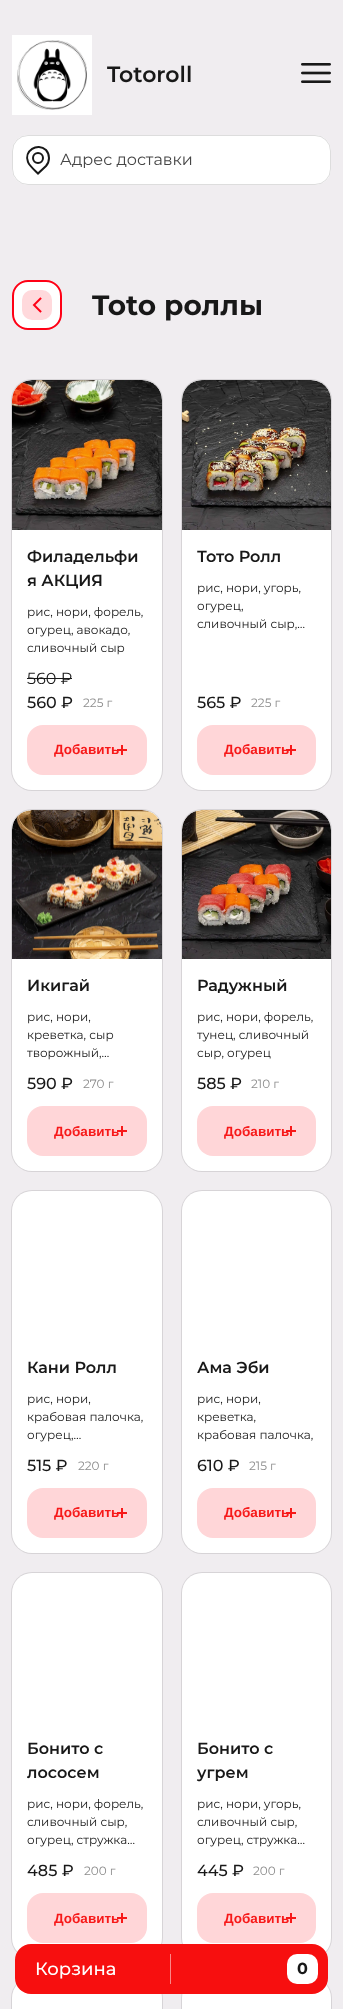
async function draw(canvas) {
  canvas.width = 343
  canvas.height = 2009
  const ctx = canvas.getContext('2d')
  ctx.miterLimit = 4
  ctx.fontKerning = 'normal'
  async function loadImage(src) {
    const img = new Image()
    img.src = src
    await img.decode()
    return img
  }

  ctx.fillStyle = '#f0edf0'
  ctx.fillRect(0, 0, 343, 2009)
  ctx.drawImage(await loadImage('image0.png'), 12, 35, 80, 80)
  ctx.font = '600 22px Montserrat'
  ctx.fillStyle = '#181818'
  ctx.fillText('Totoroll', 107, 82)
  ctx.drawImage(await loadImage('image1.png'), 301, 63, 30, 20)
  ctx.fillStyle = '#fff'
  ctx.beginPath()
  ctx.roundRect(12, 135, 319, 50, 16)
  ctx.fill()
  ctx.beginPath()
  ctx.roundRect(12.5, 135.5, 318, 49, 15.5)
  ctx.strokeStyle = '#18181826'
  ctx.stroke()
  ctx.beginPath()
  ctx.moveTo(46, 150)
  ctx.bezierCurveTo(50, 154.5, 50, 161.5, 46, 166)
  ctx.lineTo(38, 173.5)
  ctx.bezierCurveTo(35, 170.5, 29.5, 166, 28, 162)
  ctx.bezierCurveTo(23.5, 151, 37.5, 142, 46, 150)
  ctx.closePath()
  ctx.strokeStyle = '#181818'
  ctx.lineWidth = 2
  ctx.stroke()
  ctx.beginPath()
  ctx.arc(38, 158, 5, 0, 2 * Math.PI)
  ctx.stroke()
  ctx.font = '16px Montserrat'
  ctx.fillStyle = '#464646'
  ctx.fillText('Адрес доставки', 60, 165)
  ctx.fillStyle = '#0000001a'
  ctx.filter = 'blur(0.5px)'
  ctx.beginPath()
  ctx.roundRect(11, 1572, 152, 387, 21)
  ctx.fill()
  ctx.filter = 'none'
  ctx.fillStyle = '#fff'
  ctx.beginPath()
  ctx.roundRect(12, 1573, 150, 385, 20)
  ctx.fill()
  ctx.fillStyle = '#0000001a'
  ctx.filter = 'blur(0.5px)'
  ctx.beginPath()
  ctx.roundRect(181, 1572, 151, 387, 21)
  ctx.fill()
  ctx.filter = 'none'
  ctx.fillStyle = '#fff'
  ctx.beginPath()
  ctx.roundRect(182, 1573, 149, 385, 20)
  ctx.fill()
  ctx.fillStyle = '#0000001a'
  ctx.filter = 'blur(0.5px)'
  ctx.beginPath()
  ctx.roundRect(11, 1977, 152, 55, 21)
  ctx.fill()
  ctx.filter = 'none'
  ctx.fillStyle = '#fff'
  ctx.beginPath()
  ctx.roundRect(12, 1978, 150, 31, [20, 20, 0, 0])
  ctx.fill()
  ctx.fillStyle = '#0000001a'
  ctx.filter = 'blur(0.5px)'
  ctx.beginPath()
  ctx.roundRect(181, 1977, 151, 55, 21)
  ctx.fill()
  ctx.filter = 'none'
  ctx.fillStyle = '#fff'
  ctx.beginPath()
  ctx.roundRect(182, 1978, 149, 31, [20, 20, 0, 0])
  ctx.fill()
  ctx.fillStyle = '#f70f0f'
  ctx.beginPath()
  ctx.roundRect(15, 1944, 313, 50, 16)
  ctx.fill()
  ctx.font = '500 18px Montserrat'
  ctx.fillStyle = '#fff'
  ctx.fillText('Корзина', 35, 1975)
  ctx.fillStyle = '#fb8787'
  ctx.fillRect(170, 1954, 1, 30)
  ctx.fillStyle = '#fff'
  ctx.beginPath()
  ctx.roundRect(287, 1954, 31, 30, 10)
  ctx.fill()
  ctx.font = 'bold 16px Montserrat'
  ctx.fillStyle = '#181818'
  ctx.fillText('0', 297, 1974)
  ctx.fillStyle = '#fff'
  ctx.beginPath()
  ctx.roundRect(13, 281, 48, 48, 15)
  ctx.fill()
  ctx.strokeStyle = '#ff0015'
  ctx.stroke()
  ctx.fillStyle = '#ffd9dc'
  ctx.beginPath()
  ctx.roundRect(22, 290, 30, 30, 10)
  ctx.fill()
  ctx.drawImage(await loadImage('image2.png'), 32, 297, 10, 16)
  ctx.font = 'bold 28px Montserrat'
  ctx.fillStyle = '#181818'
  ctx.fillText('Toto роллы', 92, 315)
  ctx.fillStyle = '#0000001a'
  ctx.filter = 'blur(0.5px)'
  ctx.beginPath()
  ctx.roundRect(11, 379, 152, 412, 21)
  ctx.fill()
  ctx.filter = 'none'
  ctx.fillStyle = '#fff'
  ctx.beginPath()
  ctx.roundRect(12, 380, 150, 410, 20)
  ctx.fill()
  ctx.drawImage(await loadImage('image3.png'), 12, 380, 150, 150)
  ctx.font = '600 16px Montserrat'
  ctx.fillStyle = '#181818'
  ctx.fillText('Филадельфи', 27, 562)
  ctx.fillText('я АКЦИЯ', 27, 586)
  ctx.font = '12px Montserrat'
  ctx.fillText('рис, нори, форель,', 27, 616)
  ctx.fillText('огурец, авокадо,', 27, 634)
  ctx.fillText('сливочный сыр', 27, 652)
  ctx.font = '16px Montserrat'
  ctx.fillText('560 ₽', 27, 684)
  ctx.fillRect(27, 678, 45, 1)
  ctx.font = '500 16px Montserrat'
  ctx.fillText('560 ₽', 27, 708)
  ctx.font = '12px Montserrat'
  ctx.fillStyle = '#8c8c8c'
  ctx.fillText('225 г', 83, 707)
  ctx.fillStyle = '#ffd6d8'
  ctx.beginPath()
  ctx.roundRect(27, 725, 120, 50, 16)
  ctx.fill()
  ctx.font = 'bold 13.5px Liberation Sans'
  ctx.fillStyle = '#f71919'
  ctx.fillText('Добавить', 54, 754)
  ctx.fillRect(117, 749, 10, 2)
  ctx.fillRect(121, 745, 2, 10)
  ctx.fillStyle = '#0000001a'
  ctx.filter = 'blur(0.5px)'
  ctx.beginPath()
  ctx.roundRect(181, 379, 151, 412, 21)
  ctx.fill()
  ctx.filter = 'none'
  ctx.fillStyle = '#fff'
  ctx.beginPath()
  ctx.roundRect(182, 380, 149, 410, 20)
  ctx.fill()
  ctx.drawImage(await loadImage('image4.png'), 182, 380, 149, 150)
  ctx.font = '600 16px Montserrat'
  ctx.fillStyle = '#181818'
  ctx.fillText('Тото Ролл', 197, 562)
  ctx.font = '12px Montserrat'
  ctx.fillText('рис, нори, угорь,', 197, 592)
  ctx.fillText('огурец,', 197, 610)
  ctx.fillText('сливочный сыр,…', 197, 628)
  ctx.font = '500 16px Montserrat'
  ctx.fillText('565 ₽', 197, 708)
  ctx.font = '12px Montserrat'
  ctx.fillStyle = '#8c8c8c'
  ctx.fillText('225 г', 251, 707)
  ctx.fillStyle = '#ffd6d8'
  ctx.beginPath()
  ctx.roundRect(197, 725, 119, 50, 16)
  ctx.fill()
  ctx.font = 'bold 13.5px Liberation Sans'
  ctx.fillStyle = '#f71919'
  ctx.fillText('Добавить', 224, 754)
  ctx.fillRect(286, 749, 10, 2)
  ctx.fillRect(290, 745, 2, 10)
  ctx.fillStyle = '#0000001a'
  ctx.filter = 'blur(0.5px)'
  ctx.beginPath()
  ctx.roundRect(11, 809, 152, 363, 21)
  ctx.fill()
  ctx.filter = 'none'
  ctx.fillStyle = '#fff'
  ctx.beginPath()
  ctx.roundRect(12, 810, 150, 361, 20)
  ctx.fill()
  ctx.drawImage(await loadImage('image5.png'), 12, 810, 150, 149)
  ctx.font = '600 16px Montserrat'
  ctx.fillStyle = '#181818'
  ctx.fillText('Икигай', 27, 991)
  ctx.font = '12px Montserrat'
  ctx.fillText('рис, нори,', 27, 1021)
  ctx.fillText('креветка, сыр', 27, 1039)
  ctx.fillText('творожный,…', 27, 1057)
  ctx.font = '500 16px Montserrat'
  ctx.fillText('590 ₽', 27, 1089)
  ctx.font = '12px Montserrat'
  ctx.fillStyle = '#8c8c8c'
  ctx.fillText('270 г', 83, 1088)
  ctx.fillStyle = '#ffd6d8'
  ctx.beginPath()
  ctx.roundRect(27, 1106, 120, 50, 16)
  ctx.fill()
  ctx.font = 'bold 13.5px Liberation Sans'
  ctx.fillStyle = '#f71919'
  ctx.fillText('Добавить', 54, 1136)
  ctx.fillRect(117, 1130, 10, 2)
  ctx.fillRect(121, 1126, 2, 10)
  ctx.fillStyle = '#0000001a'
  ctx.filter = 'blur(0.5px)'
  ctx.beginPath()
  ctx.roundRect(181, 809, 151, 363, 21)
  ctx.fill()
  ctx.filter = 'none'
  ctx.fillStyle = '#fff'
  ctx.beginPath()
  ctx.roundRect(182, 810, 149, 361, 20)
  ctx.fill()
  ctx.drawImage(await loadImage('image6.png'), 182, 810, 149, 149)
  ctx.font = '600 16px Montserrat'
  ctx.fillStyle = '#181818'
  ctx.fillText('Радужный', 197, 991)
  ctx.font = '12px Montserrat'
  ctx.fillText('рис, нори, форель,', 197, 1021)
  ctx.fillText('тунец, сливочный', 197, 1039)
  ctx.fillText('сыр, огурец', 197, 1057)
  ctx.font = '500 16px Montserrat'
  ctx.fillText('585 ₽', 197, 1089)
  ctx.font = '12px Montserrat'
  ctx.fillStyle = '#8c8c8c'
  ctx.fillText('210 г', 251, 1088)
  ctx.fillStyle = '#ffd6d8'
  ctx.beginPath()
  ctx.roundRect(197, 1106, 119, 50, 16)
  ctx.fill()
  ctx.font = 'bold 13.5px Liberation Sans'
  ctx.fillStyle = '#f71919'
  ctx.fillText('Добавить', 224, 1136)
  ctx.fillRect(286, 1130, 10, 2)
  ctx.fillRect(290, 1126, 2, 10)
  ctx.fillStyle = '#0000001a'
  ctx.filter = 'blur(0.5px)'
  ctx.beginPath()
  ctx.roundRect(11, 1190, 152, 364, 21)
  ctx.fill()
  ctx.filter = 'none'
  ctx.fillStyle = '#fff'
  ctx.beginPath()
  ctx.roundRect(12, 1191, 150, 362, 20)
  ctx.fill()
  ctx.font = '600 16px Montserrat'
  ctx.fillStyle = '#181818'
  ctx.fillText('Кани Ролл', 27, 1373)
  ctx.font = '12px Montserrat'
  ctx.fillText('рис, нори,', 27, 1403)
  ctx.fillText('крабовая палочка,', 27, 1421)
  ctx.fillText('огурец,…', 27, 1439)
  ctx.font = '500 16px Montserrat'
  ctx.fillText('515 ₽', 27, 1471)
  ctx.font = '12px Montserrat'
  ctx.fillStyle = '#8c8c8c'
  ctx.fillText('220 г', 78, 1470)
  ctx.fillStyle = '#ffd6d8'
  ctx.beginPath()
  ctx.roundRect(27, 1488, 120, 50, 16)
  ctx.fill()
  ctx.font = 'bold 13.5px Liberation Sans'
  ctx.fillStyle = '#f71919'
  ctx.fillText('Добавить', 54, 1517)
  ctx.fillRect(117, 1512, 10, 2)
  ctx.fillRect(121, 1508, 2, 10)
  ctx.fillStyle = '#0000001a'
  ctx.filter = 'blur(0.5px)'
  ctx.beginPath()
  ctx.roundRect(181, 1190, 151, 364, 21)
  ctx.fill()
  ctx.filter = 'none'
  ctx.fillStyle = '#fff'
  ctx.beginPath()
  ctx.roundRect(182, 1191, 149, 362, 20)
  ctx.fill()
  ctx.font = '600 16px Montserrat'
  ctx.fillStyle = '#181818'
  ctx.fillText('Ама Эби', 197, 1373)
  ctx.font = '12px Montserrat'
  ctx.fillText('рис, нори,', 197, 1403)
  ctx.fillText('креветка,', 197, 1421)
  ctx.fillText('крабовая палочка,', 197, 1439)
  ctx.font = '500 16px Montserrat'
  ctx.fillText('610 ₽', 197, 1471)
  ctx.font = '12px Montserrat'
  ctx.fillStyle = '#8c8c8c'
  ctx.fillText('215 г', 249, 1470)
  ctx.fillStyle = '#ffd6d8'
  ctx.beginPath()
  ctx.roundRect(197, 1488, 119, 50, 16)
  ctx.fill()
  ctx.font = 'bold 13.5px Liberation Sans'
  ctx.fillStyle = '#f71919'
  ctx.fillText('Добавить', 224, 1517)
  ctx.fillRect(286, 1512, 10, 2)
  ctx.fillRect(290, 1508, 2, 10)
  ctx.font = '600 16px Montserrat'
  ctx.fillStyle = '#181818'
  ctx.fillText('Бонито с', 27, 1754)
  ctx.fillText('лососем', 27, 1778)
  ctx.font = '12px Montserrat'
  ctx.fillText('рис, нори, форель,', 27, 1808)
  ctx.fillText('сливочный сыр,', 27, 1826)
  ctx.fillText('огурец, стружка…', 27, 1844)
  ctx.font = '500 16px Montserrat'
  ctx.fillText('485 ₽', 27, 1876)
  ctx.font = '12px Montserrat'
  ctx.fillStyle = '#8c8c8c'
  ctx.fillText('200 г', 84, 1875)
  ctx.fillStyle = '#ffd6d8'
  ctx.beginPath()
  ctx.roundRect(27, 1893, 120, 50, 16)
  ctx.fill()
  ctx.font = 'bold 13.5px Liberation Sans'
  ctx.fillStyle = '#f71919'
  ctx.fillText('Добавить', 54, 1923)
  ctx.fillRect(117, 1917, 10, 2)
  ctx.fillRect(121, 1913, 2, 10)
  ctx.font = '600 16px Montserrat'
  ctx.fillStyle = '#181818'
  ctx.fillText('Бонито с', 197, 1754)
  ctx.fillText('угрем', 197, 1778)
  ctx.font = '12px Montserrat'
  ctx.fillText('рис, нори, угорь,', 197, 1808)
  ctx.fillText('сливочный сыр,', 197, 1826)
  ctx.fillText('огурец, стружка…', 197, 1844)
  ctx.font = '500 16px Montserrat'
  ctx.fillText('445 ₽', 197, 1876)
  ctx.font = '12px Montserrat'
  ctx.fillStyle = '#8c8c8c'
  ctx.fillText('200 г', 253, 1875)
  ctx.fillStyle = '#ffd6d8'
  ctx.beginPath()
  ctx.roundRect(197, 1893, 119, 50, 16)
  ctx.fill()
  ctx.font = 'bold 13.5px Liberation Sans'
  ctx.fillStyle = '#f71919'
  ctx.fillText('Добавить', 224, 1923)
  ctx.fillRect(286, 1917, 10, 2)
  ctx.fillRect(290, 1913, 2, 10)
}

draw(document.querySelector('canvas'))
